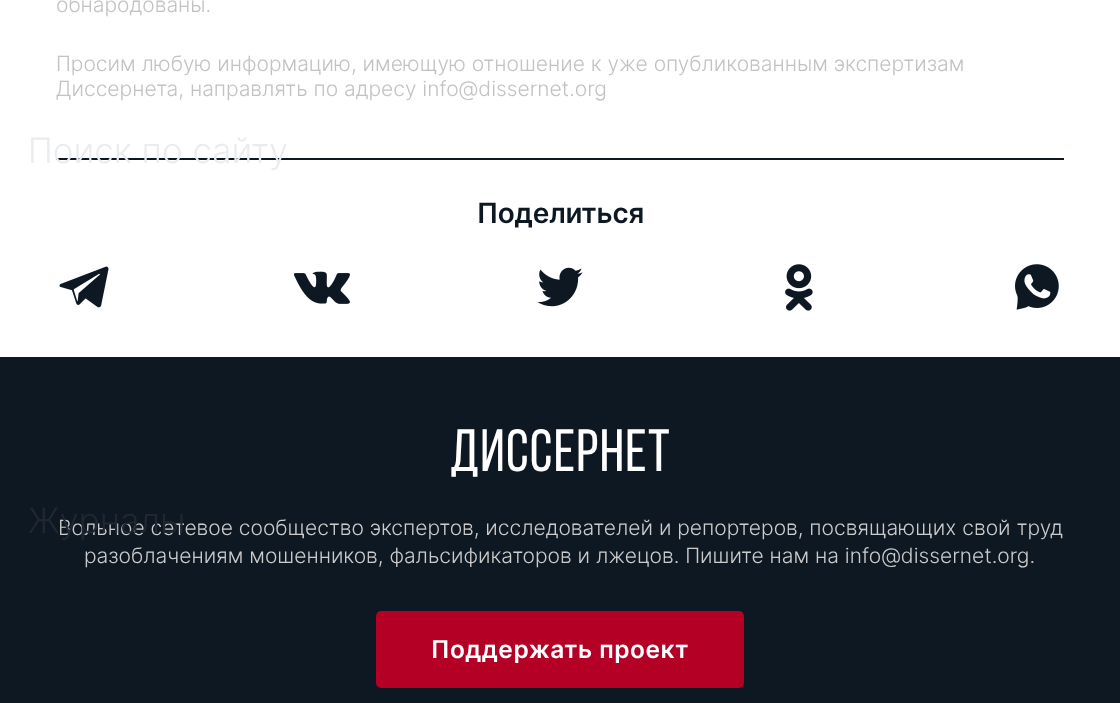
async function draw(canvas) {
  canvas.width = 1120
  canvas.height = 703
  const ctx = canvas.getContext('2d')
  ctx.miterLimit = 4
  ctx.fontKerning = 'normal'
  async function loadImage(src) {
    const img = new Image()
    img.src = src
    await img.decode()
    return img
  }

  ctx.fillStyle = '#fff'
  ctx.fillRect(0, 0, 1120, 703)
  ctx.font = '300 21px Inter'
  ctx.fillStyle = '#c2c2c2'
  ctx.fillText('обнародованы.', 56, 12)
  ctx.fillText('Просим любую информацию, имеющую отношение к уже опубликованным экспертизам', 56, 71)
  ctx.fillText('Диссернета, направлять по адресу info@dissernet.org', 56, 96)
  ctx.fillStyle = '#0e1823'
  ctx.fillRect(56, 158, 1008, 2)
  ctx.letterSpacing = '-0.25px'
  ctx.font = '600 28px Inter'
  ctx.fillText('Поделиться', 477, 223)
  ctx.drawImage(await loadImage('image0.png'), 59, 266, 50, 42)
  ctx.drawImage(await loadImage('image1.png'), 294, 271, 56, 33)
  ctx.drawImage(await loadImage('image2.png'), 537, 267, 46, 40)
  ctx.drawImage(await loadImage('image3.png'), 785, 264, 28, 47)
  ctx.drawImage(await loadImage('image4.png'), 1015, 264, 44, 46)
  ctx.letterSpacing = '0px'
  ctx.font = '300 35px Inter'
  ctx.fillStyle = '#ebeced'
  ctx.fillText('Поиск по сайту', 28, 163)
  ctx.fillStyle = '#0e1823'
  ctx.fillRect(0, 357, 1120, 346)
  ctx.font = '300 21px Inter'
  ctx.fillStyle = '#ccc'
  ctx.fillText('Вольное сетевое сообщество экспертов, исследователей и репортеров, посвящающих свой труд', 58, 535)
  ctx.font = '300 35px Inter'
  ctx.fillStyle = '#1f2832'
  ctx.fillText('Журналы', 28, 533)
  ctx.letterSpacing = '1.25px'
  ctx.font = '59.5px Bebas Neue'
  ctx.fillStyle = '#fff'
  ctx.fillText('ДИССЕРНЕТ', 450, 471)
  ctx.letterSpacing = '0px'
  ctx.font = '300 21px Inter'
  ctx.fillStyle = '#ccc'
  ctx.fillText('разоблачениям мошенников, фальсификаторов и лжецов. Пишите нам на info@dissernet.org.', 84, 563)
  ctx.fillStyle = '#b50026'
  ctx.beginPath()
  ctx.roundRect(376, 611, 368, 77, 5)
  ctx.fill()
  ctx.letterSpacing = '0.5px'
  ctx.font = '600 24.5px Inter'
  ctx.fillStyle = '#fff'
  ctx.fillText('Поддержать проект', 431, 658)
}

draw(document.querySelector('canvas'))
